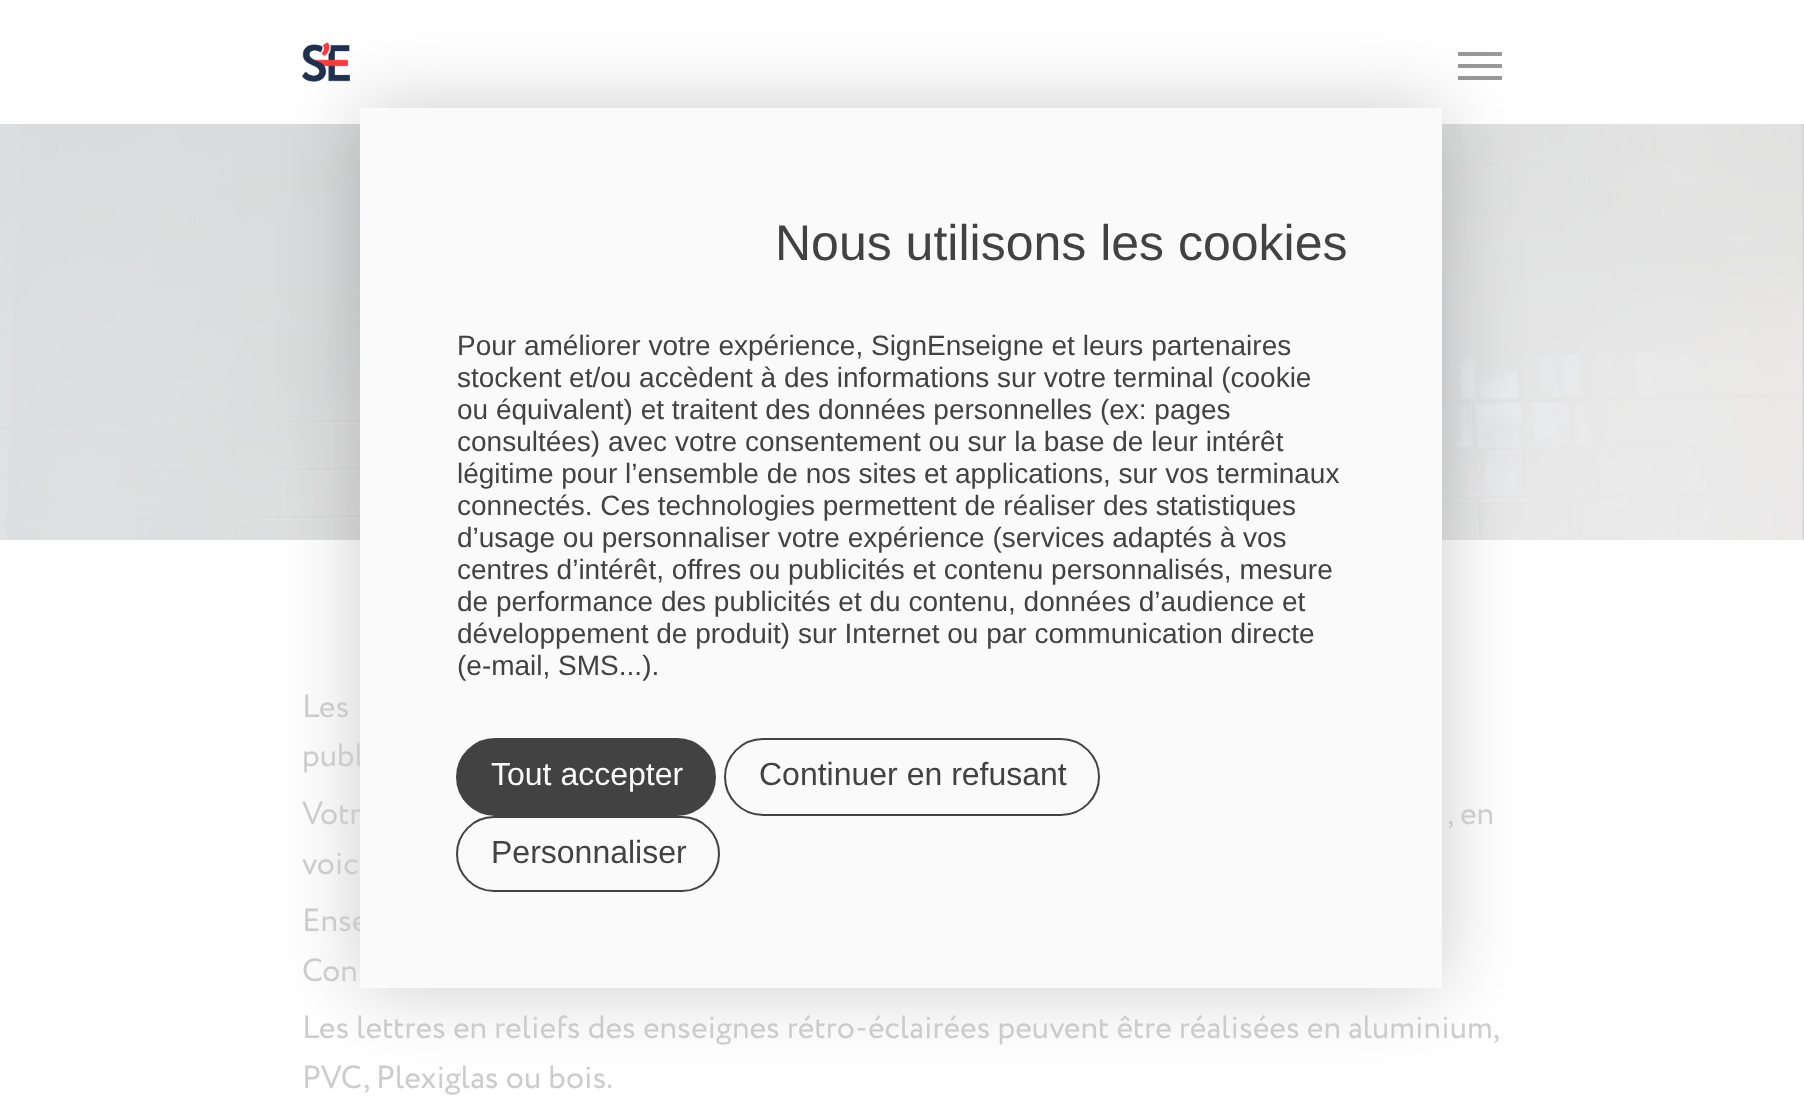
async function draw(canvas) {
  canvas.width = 1804
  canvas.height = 1096
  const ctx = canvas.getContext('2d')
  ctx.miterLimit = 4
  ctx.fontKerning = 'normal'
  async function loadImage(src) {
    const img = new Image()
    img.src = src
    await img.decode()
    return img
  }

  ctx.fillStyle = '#fff'
  ctx.fillRect(0, 0, 1804, 1096)
  ctx.drawImage(await loadImage('image0.png'), 302, 42, 48, 40)
  ctx.fillStyle = '#999'
  ctx.fillRect(1458, 52, 44, 4)
  ctx.fillRect(1458, 76, 44, 4)
  ctx.fillRect(1458, 64, 44, 4)
  ctx.drawImage(await loadImage('image1.png'), 0, 124, 1804, 416)
  ctx.fillStyle = '#00000033'
  ctx.filter = 'blur(40px)'
  ctx.beginPath()
  ctx.rect(360, 108, 1082, 880)
  ctx.fill()
  ctx.filter = 'none'
  ctx.font = '32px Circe'
  ctx.fillStyle = '#ccc'
  ctx.fillText('publ', 302, 766)
  ctx.fillText('Votr', 302, 824)
  ctx.fillText('Ense', 302, 931)
  ctx.fillStyle = '#fafafa'
  ctx.fillRect(360, 108, 1082, 880)
  ctx.font = '50px Liberation Sans'
  ctx.fillStyle = '#424242'
  ctx.fillText('Nous utilisons les cookies', 775, 260)
  ctx.font = '28px Liberation Sans'
  ctx.fillText('Pour améliorer votre expérience, SignEnseigne et leurs partenaires', 457, 355)
  ctx.fillText('stockent et/ou accèdent à des informations sur votre terminal (cookie', 457, 387)
  ctx.fillText('ou équivalent) et traitent des données personnelles (ex: pages', 457, 419)
  ctx.fillText('consultées) avec votre consentement ou sur la base de leur intérêt', 457, 451)
  ctx.fillText('légitime pour l’ensemble de nos sites et applications, sur vos terminaux', 457, 483)
  ctx.fillText('connectés. Ces technologies permettent de réaliser des statistiques', 457, 515)
  ctx.fillText('d’usage ou personnaliser votre expérience (services adaptés à vos', 457, 547)
  ctx.fillText('centres d’intérêt, offres ou publicités et contenu personnalisés, mesure', 457, 579)
  ctx.fillText('de performance des publicités et du contenu, données d’audience et', 457, 611)
  ctx.fillText('développement de produit) sur Internet ou par communication directe', 457, 643)
  ctx.fillText('(e-mail, SMS...).', 457, 675)
  ctx.beginPath()
  ctx.roundRect(457, 739, 258, 76, 38)
  ctx.fill()
  ctx.strokeStyle = '#424242'
  ctx.lineWidth = 2
  ctx.stroke()
  ctx.font = '32px Liberation Sans'
  ctx.fillStyle = '#fafafa'
  ctx.fillText('Tout accepter', 491, 785)
  ctx.beginPath()
  ctx.roundRect(725, 739, 374, 76, 38)
  ctx.stroke()
  ctx.fillStyle = '#424242'
  ctx.fillText('Continuer en refusant', 759, 785)
  ctx.beginPath()
  ctx.roundRect(457, 817, 262, 74, 37)
  ctx.stroke()
  ctx.fillText('Personnaliser', 491, 863)
  ctx.font = '32px Circe'
  ctx.fillStyle = '#ccc'
  ctx.fillText('Les', 302, 717)
  ctx.fillText(', en', 1447, 824)
  ctx.fillText('voic', 302, 874)
  ctx.fillText('Con', 302, 981)
  ctx.wordSpacing = '-0.1px'
  ctx.fillText('Les lettres en reliefs des enseignes rétro-éclairées peuvent être réalisées en aluminium,', 302, 1038)
  ctx.wordSpacing = '0px'
  ctx.fillText('PVC, Plexiglas ou bois.', 302, 1088)
}

draw(document.querySelector('canvas'))
